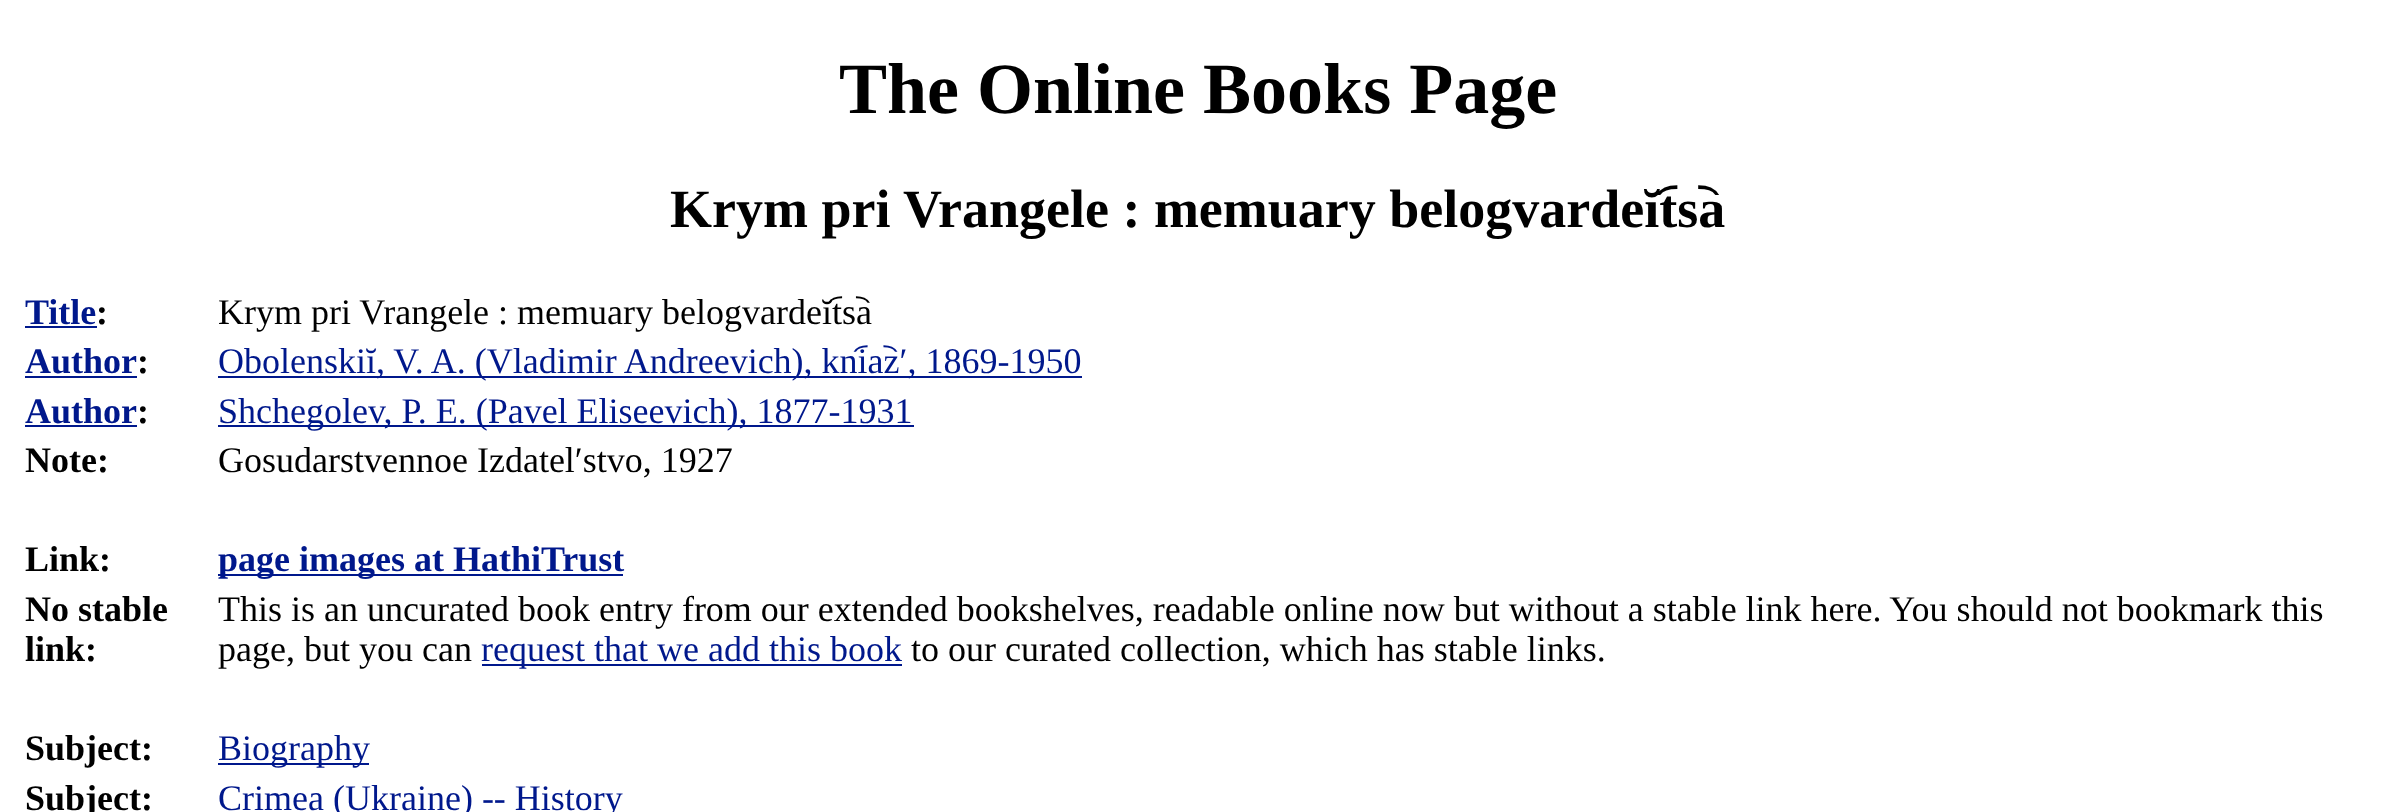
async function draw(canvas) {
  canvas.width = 2396
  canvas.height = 812
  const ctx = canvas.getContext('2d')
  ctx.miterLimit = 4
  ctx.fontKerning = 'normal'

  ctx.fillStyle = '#fff'
  ctx.fillRect(0, 0, 2396, 812)
  ctx.font = 'bold 72px Liberation Serif'
  ctx.fillStyle = '#000'
  ctx.fillText('The Online Books Page', 839, 113)
  ctx.font = 'bold 54px Liberation Serif'
  ctx.fillText('Krym pri Vrangele : memuary belogvardeĭt︠s︡a', 670, 227)
  ctx.font = 'bold 36px Liberation Serif'
  ctx.fillStyle = '#00188c'
  ctx.fillText('Title', 25, 324)
  ctx.fillStyle = '#000'
  ctx.fillText(':', 96, 324)
  ctx.fillStyle = '#00188c'
  ctx.fillRect(25, 326, 72, 2)
  ctx.font = '36px Liberation Serif'
  ctx.fillStyle = '#000'
  ctx.fillText('Krym pri Vrangele : memuary belogvardeĭt︠s︡a', 218, 324)
  ctx.font = 'bold 36px Liberation Serif'
  ctx.fillStyle = '#00188c'
  ctx.fillText('Author', 25, 373)
  ctx.fillStyle = '#000'
  ctx.fillText(':', 137, 373)
  ctx.fillStyle = '#00188c'
  ctx.fillRect(25, 376, 112, 2)
  ctx.fillRect(218, 376, 864, 2)
  ctx.font = '36px Liberation Serif'
  ctx.fillText('Obolenskiĭ, V. A. (Vladimir Andreevich), kni︠a︡zʹ, 1869-1950', 218, 373)
  ctx.font = 'bold 36px Liberation Serif'
  ctx.fillText('Author', 25, 423)
  ctx.fillStyle = '#000'
  ctx.fillText(':', 137, 423)
  ctx.fillStyle = '#00188c'
  ctx.fillRect(25, 425, 112, 2)
  ctx.fillRect(218, 425, 696, 2)
  ctx.font = '36px Liberation Serif'
  ctx.fillText('Shchegolev, P. E. (Pavel Eliseevich), 1877-1931', 218, 423)
  ctx.font = 'bold 36px Liberation Serif'
  ctx.fillStyle = '#000'
  ctx.fillText('Note:', 25, 472)
  ctx.font = '36px Liberation Serif'
  ctx.fillText('Gosudarstvennoe Izdatelʹstvo, 1927', 218, 472)
  ctx.font = 'bold 36px Liberation Serif'
  ctx.fillText('Link:', 25, 571)
  ctx.fillStyle = '#00188c'
  ctx.fillRect(218, 574, 405, 2)
  ctx.fillText('page images at HathiTrust', 218, 571)
  ctx.fillStyle = '#000'
  ctx.fillText('No stable', 25, 621)
  ctx.fillText('link:', 25, 661)
  ctx.font = '36px Liberation Serif'
  ctx.fillText('This is an uncurated book entry from our extended bookshelves, readable online now but without a stable link here. You should not bookmark this', 218, 621)
  ctx.fillText('page, but you can', 218, 661)
  ctx.fillStyle = '#00188c'
  ctx.fillRect(482, 664, 420, 2)
  ctx.fillText('request that we add this book', 481, 661)
  ctx.fillStyle = '#000'
  ctx.fillText('to our curated collection, which has stable links.', 911, 661)
  ctx.font = 'bold 36px Liberation Serif'
  ctx.fillText('Subject:', 25, 760)
  ctx.fillStyle = '#00188c'
  ctx.fillRect(218, 763, 151, 2)
  ctx.font = '36px Liberation Serif'
  ctx.fillText('Biography', 218, 760)
  ctx.font = 'bold 36px Liberation Serif'
  ctx.fillStyle = '#000'
  ctx.fillText('Subject:', 25, 810)
  ctx.font = '36px Liberation Serif'
  ctx.fillStyle = '#00188c'
  ctx.fillText('Crimea (Ukraine) -- History', 218, 810)
}

draw(document.querySelector('canvas'))
